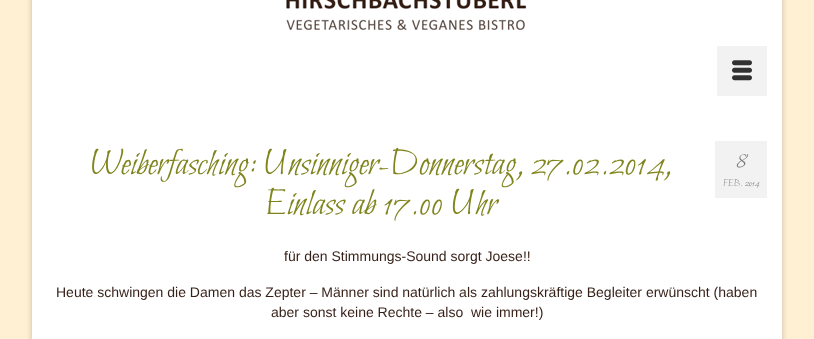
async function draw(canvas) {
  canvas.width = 814
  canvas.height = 339
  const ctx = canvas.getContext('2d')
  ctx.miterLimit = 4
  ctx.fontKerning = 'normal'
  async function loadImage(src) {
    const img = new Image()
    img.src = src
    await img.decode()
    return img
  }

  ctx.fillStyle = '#ffefd3'
  ctx.fillRect(0, 0, 814, 339)
  ctx.fillStyle = '#00000029'
  ctx.filter = 'blur(2.5px)'
  ctx.beginPath()
  ctx.rect(31, -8, 752, 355)
  ctx.fill()
  ctx.filter = 'none'
  ctx.fillStyle = '#fff'
  ctx.fillRect(32, 0, 750, 339)
  ctx.drawImage(await loadImage('image0.png'), 286, 0, 241, 31)
  ctx.fillStyle = '#f2f2f2'
  ctx.fillRect(717, 46, 50, 50)
  ctx.drawImage(await loadImage('image1.png'), 732, 60, 20, 21)
  ctx.font = '38px Bilbo'
  ctx.fillStyle = '#7f841c'
  ctx.fillText('Weiberfasching: Unsinniger-Donnerstag, 27.02.2014,', 90, 174)
  ctx.fillText('Einlass ab 17.00 Uhr', 265, 214)
  ctx.fillStyle = '#f2f2f2'
  ctx.fillRect(715, 141, 52, 57)
  ctx.font = '24px Bilbo'
  ctx.fillStyle = '#777'
  ctx.fillText('8', 736, 167)
  ctx.font = '10px Bilbo'
  ctx.fillText('FEB. 2014', 723, 186)
  ctx.font = '14px Liberation Sans'
  ctx.fillStyle = '#351f17'
  ctx.fillText('für den Stimmungs-Sound sorgt Joese!!', 284, 261)
  ctx.fillText('Heute schwingen die Damen das Zepter – Männer sind natürlich als zahlungskräftige Begleiter erwünscht (haben', 56, 297)
  ctx.fillText('aber sonst keine Rechte – also  wie immer!)', 271, 317)
}

draw(document.querySelector('canvas'))
